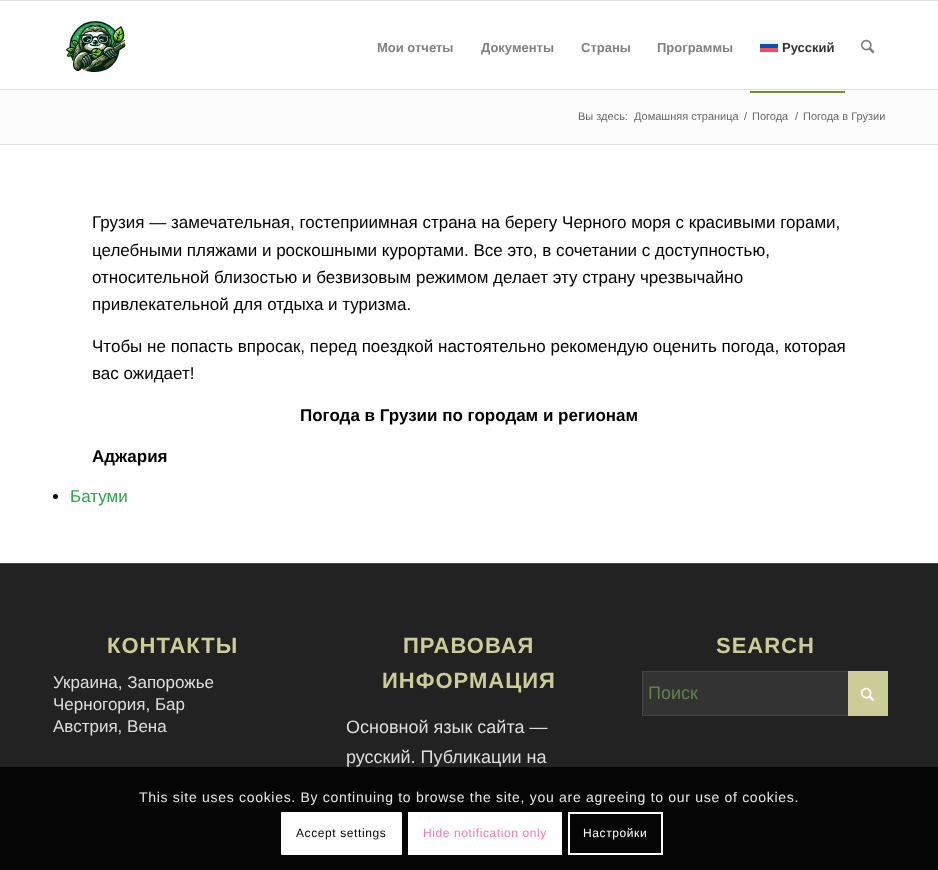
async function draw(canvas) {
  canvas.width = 938
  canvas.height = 870
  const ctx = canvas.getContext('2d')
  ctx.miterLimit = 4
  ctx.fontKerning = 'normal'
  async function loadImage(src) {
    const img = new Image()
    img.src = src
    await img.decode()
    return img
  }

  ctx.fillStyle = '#fff'
  ctx.fillRect(0, 0, 938, 870)
  ctx.fillStyle = '#e1e1e1'
  ctx.fillRect(0, 0, 938, 1)
  ctx.fillRect(0, 89, 938, 1)
  ctx.drawImage(await loadImage('image0.png'), 65, 21, 61, 51)
  ctx.font = 'bold 13px Liberation Sans'
  ctx.fillStyle = '#808080'
  ctx.fillText('Мои отчеты', 377, 52)
  ctx.fillText('Документы', 481, 52)
  ctx.fillText('Страны', 581, 52)
  ctx.fillText('Программы', 657, 52)
  ctx.fillStyle = '#333'
  ctx.fillText('Русский', 782, 52)
  ctx.fillStyle = '#0052b4'
  ctx.fillRect(760, 44, 18, 4)
  ctx.fillStyle = '#ff4b55'
  ctx.fillRect(760, 48, 18, 4)
  ctx.fillStyle = '#f0f0f0'
  ctx.fillRect(760, 40, 18, 4)
  ctx.fillStyle = '#fcfcfc'
  ctx.fillRect(0, 90, 938, 54)
  ctx.fillStyle = '#719430'
  ctx.fillRect(750, 91, 95, 2)
  ctx.drawImage(await loadImage('image1.png'), 861, 39, 14, 15)
  ctx.font = '11px Liberation Sans'
  ctx.fillStyle = '#666'
  ctx.fillText('Вы здесь:', 578, 120)
  ctx.fillText('Домашняя страница', 634, 120)
  ctx.fillText('/', 744, 120)
  ctx.fillText('Погода', 752, 120)
  ctx.fillText('/', 795, 120)
  ctx.fillText('Погода в Грузии', 803, 120)
  ctx.fillStyle = '#e1e1e1'
  ctx.fillRect(0, 144, 938, 1)
  ctx.font = '17px Liberation Sans'
  ctx.fillStyle = '#000'
  ctx.fillText('Грузия — замечательная, гостеприимная страна на берегу Черного моря с красивыми горами,', 92, 228)
  ctx.fillText('целебными пляжами и роскошными курортами. Все это, в сочетании с доступностью,', 92, 256)
  ctx.fillText('относительной близостью и безвизовым режимом делает эту страну чрезвычайно', 92, 283)
  ctx.fillText('привлекательной для отдыха и туризма.', 92, 310)
  ctx.fillText('Чтобы не попасть впросак, перед поездкой настоятельно рекомендую оценить погода, которая', 92, 352)
  ctx.fillText('вас ожидает!', 92, 379)
  ctx.font = 'bold 17px Liberation Sans'
  ctx.fillText('Погода в Грузии по городам и регионам', 300, 421)
  ctx.fillText('Аджария', 92, 462)
  ctx.beginPath()
  ctx.arc(55.5, 496.5, 2.5, 0, 2 * Math.PI)
  ctx.fill()
  ctx.font = '17px Liberation Sans'
  ctx.fillStyle = '#2aa64b'
  ctx.fillText('Батуми', 70, 502)
  ctx.fillStyle = '#222'
  ctx.fillRect(0, 564, 938, 306)
  ctx.fillStyle = '#444'
  ctx.fillRect(0, 563, 938, 1)
  ctx.letterSpacing = '1px'
  ctx.font = 'bold 22px Liberation Sans'
  ctx.fillStyle = '#cc9'
  ctx.fillText('КОНТАКТЫ', 107, 653)
  ctx.letterSpacing = '0px'
  ctx.font = '17px Liberation Sans'
  ctx.fillStyle = '#ddd'
  ctx.fillText('Украина, Запорожье', 53, 688)
  ctx.fillText('Черногория, Бар', 53, 710)
  ctx.fillText('Австрия, Вена', 53, 732)
  ctx.letterSpacing = '1px'
  ctx.font = 'bold 22px Liberation Sans'
  ctx.fillStyle = '#cc9'
  ctx.fillText('ПРАВОВАЯ', 403, 653)
  ctx.fillText('ИНФОРМАЦИЯ', 382, 688)
  ctx.letterSpacing = '0px'
  ctx.font = '18px Liberation Sans'
  ctx.fillStyle = '#ddd'
  ctx.fillText('Основной язык сайта —', 346, 733)
  ctx.fillText('русский. Публикации на', 346, 763)
  ctx.letterSpacing = '1px'
  ctx.font = 'bold 22px Liberation Sans'
  ctx.fillStyle = '#cc9'
  ctx.fillText('SEARCH', 716, 653)
  ctx.fillStyle = '#333'
  ctx.fillRect(643, 672, 205, 43)
  ctx.strokeStyle = '#444'
  ctx.strokeRect(642.5, 671.5, 245, 44)
  ctx.letterSpacing = '0px'
  ctx.font = '18px Liberation Sans'
  ctx.fillStyle = '#66804d'
  ctx.fillText('Поиск', 648, 699)
  ctx.fillStyle = '#cc9'
  ctx.fillRect(848, 671, 40, 45)
  ctx.drawImage(await loadImage('image2.png'), 860, 687, 15, 15)
  ctx.fillStyle = '#000000d9'
  ctx.fillRect(0, 767, 938, 103)
  ctx.letterSpacing = '0.7px'
  ctx.font = '14px Liberation Sans'
  ctx.fillStyle = '#e6e6e6'
  ctx.fillText('This site uses cookies. By continuing to browse the site, you are agreeing to our use of cookies.', 139, 802)
  ctx.fillStyle = '#fff'
  ctx.beginPath()
  ctx.roundRect(281, 812, 121, 43, 1)
  ctx.fill()
  ctx.letterSpacing = '0.6px'
  ctx.font = '12px Liberation Sans'
  ctx.fillStyle = '#000'
  ctx.fillText('Accept settings', 296, 837)
  ctx.fillStyle = '#fff'
  ctx.beginPath()
  ctx.rect(409, 813, 152, 41)
  ctx.fill()
  ctx.strokeStyle = '#fff'
  ctx.lineWidth = 2
  ctx.stroke()
  ctx.fillStyle = '#ff75b5'
  ctx.fillText('Hide notification only', 423, 837)
  ctx.beginPath()
  ctx.rect(569, 813, 93, 41)
  ctx.stroke()
  ctx.fillStyle = '#fff'
  ctx.fillText('Настройки', 583, 837)
}

draw(document.querySelector('canvas'))
